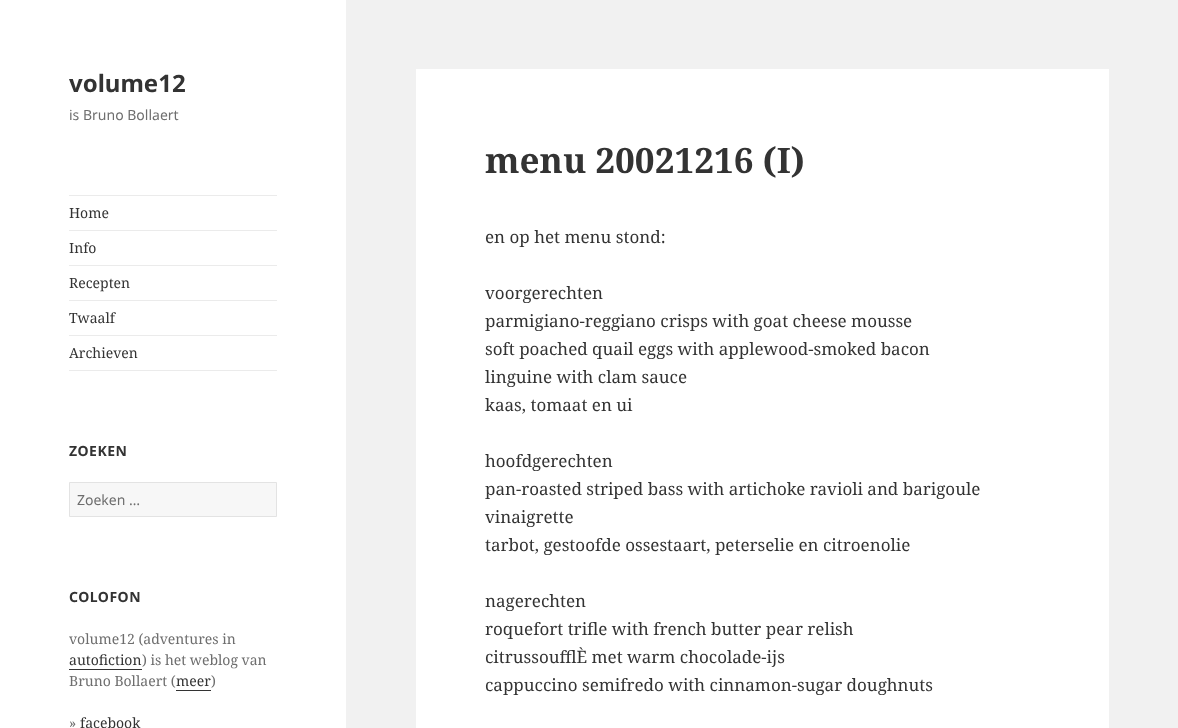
async function draw(canvas) {
  canvas.width = 1178
  canvas.height = 728
  const ctx = canvas.getContext('2d')
  ctx.miterLimit = 4
  ctx.fontKerning = 'normal'

  ctx.fillStyle = '#f1f1f1'
  ctx.fillRect(0, 0, 1178, 728)
  ctx.fillStyle = '#fff'
  ctx.fillRect(0, 0, 346, 728)
  ctx.font = 'bold 24px Noto Sans'
  ctx.fillStyle = '#333'
  ctx.fillText('volume12', 69, 92)
  ctx.font = '14px Noto Sans'
  ctx.fillStyle = '#6e6e6e'
  ctx.fillText('is Bruno Bollaert', 69, 120)
  ctx.fillStyle = '#ebebeb'
  ctx.fillRect(69, 195, 208, 1)
  ctx.fillRect(69, 370, 208, 1)
  ctx.font = '14px Noto Serif'
  ctx.fillStyle = '#333'
  ctx.fillText('Home', 69, 218)
  ctx.fillStyle = '#ebebeb'
  ctx.fillRect(69, 230, 208, 1)
  ctx.fillStyle = '#333'
  ctx.fillText('Info', 69, 253)
  ctx.fillStyle = '#ebebeb'
  ctx.fillRect(69, 265, 208, 1)
  ctx.fillStyle = '#333'
  ctx.fillText('Recepten', 69, 288)
  ctx.fillStyle = '#ebebeb'
  ctx.fillRect(69, 300, 208, 1)
  ctx.fillStyle = '#333'
  ctx.fillText('Twaalf', 69, 323)
  ctx.fillStyle = '#ebebeb'
  ctx.fillRect(69, 335, 208, 1)
  ctx.fillStyle = '#333'
  ctx.fillText('Archieven', 69, 358)
  ctx.letterSpacing = '0.5px'
  ctx.font = 'bold 14px Noto Sans'
  ctx.fillText('ZOEKEN', 69, 456)
  ctx.fillStyle = '#f7f7f7'
  ctx.beginPath()
  ctx.rect(69.5, 482.5, 207, 34)
  ctx.fill()
  ctx.strokeStyle = '#e3e3e3'
  ctx.stroke()
  ctx.letterSpacing = '0px'
  ctx.font = '14px Noto Sans'
  ctx.fillStyle = '#6e6e6e'
  ctx.fillText('Zoeken …', 77, 505)
  ctx.letterSpacing = '0.5px'
  ctx.font = 'bold 14px Noto Sans'
  ctx.fillStyle = '#333'
  ctx.fillText('COLOFON', 69, 602)
  ctx.letterSpacing = '0px'
  ctx.font = '14px Noto Serif'
  ctx.fillStyle = '#6e6e6e'
  ctx.fillText('volume12 (adventures in', 69, 644)
  ctx.fillStyle = '#333'
  ctx.fillText('autofiction', 69, 665)
  ctx.fillRect(69, 669, 73, 1)
  ctx.fillStyle = '#6e6e6e'
  ctx.fillText(') is het weblog van', 142, 665)
  ctx.fillText('Bruno Bollaert (', 69, 686)
  ctx.fillStyle = '#333'
  ctx.fillText('meer', 176, 686)
  ctx.fillRect(176, 690, 35, 1)
  ctx.fillStyle = '#6e6e6e'
  ctx.fillText(')', 211, 686)
  ctx.fillText('»', 69, 728)
  ctx.fillStyle = '#333'
  ctx.fillText('facebook', 80, 728)
  ctx.fillStyle = '#fff'
  ctx.fillRect(416, 69, 693, 659)
  ctx.font = 'bold 35px Noto Serif'
  ctx.fillStyle = '#333'
  ctx.fillText('menu 20021216 (I)', 485, 173)
  ctx.font = '17px Noto Serif'
  ctx.fillText('en op het menu stond:', 485, 243)
  ctx.fillText('voorgerechten', 485, 299)
  ctx.fillText('parmigiano-reggiano crisps with goat cheese mousse', 485, 327)
  ctx.fillText('soft poached quail eggs with applewood-smoked bacon', 485, 355)
  ctx.fillText('linguine with clam sauce', 485, 383)
  ctx.fillText('kaas, tomaat en ui', 485, 411)
  ctx.fillText('hoofdgerechten', 485, 467)
  ctx.fillText('pan-roasted striped bass with artichoke ravioli and barigoule', 485, 495)
  ctx.fillText('vinaigrette', 485, 523)
  ctx.fillText('tarbot, gestoofde ossestaart, peterselie en citroenolie', 485, 551)
  ctx.fillText('nagerechten', 485, 607)
  ctx.fillText('roquefort trifle with french butter pear relish', 485, 635)
  ctx.fillText('citrussoufflÈ met warm chocolade-ijs', 485, 663)
  ctx.fillText('cappuccino semifredo with cinnamon-sugar doughnuts', 485, 691)
}

draw(document.querySelector('canvas'))
